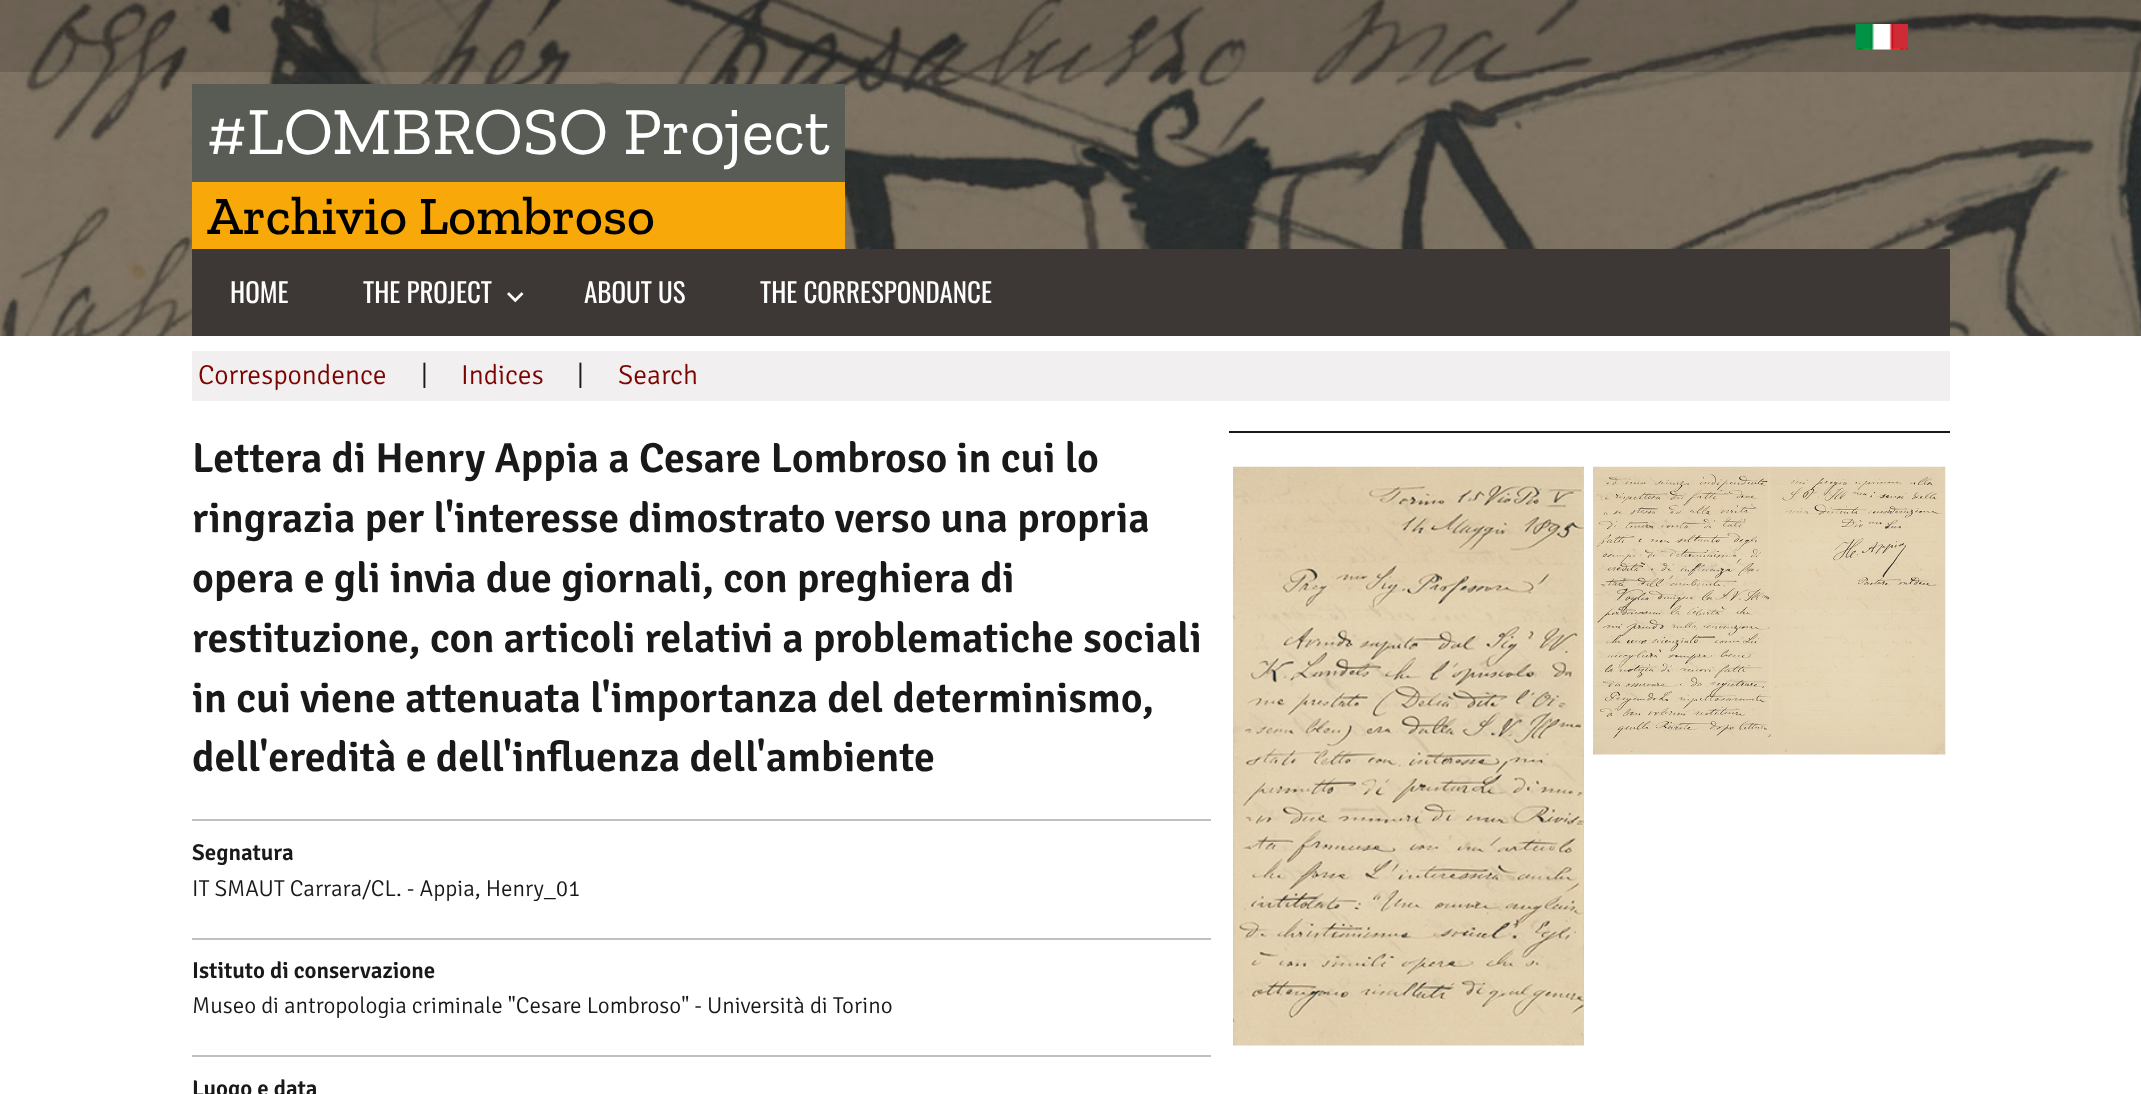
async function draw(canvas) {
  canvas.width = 2141
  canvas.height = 1094
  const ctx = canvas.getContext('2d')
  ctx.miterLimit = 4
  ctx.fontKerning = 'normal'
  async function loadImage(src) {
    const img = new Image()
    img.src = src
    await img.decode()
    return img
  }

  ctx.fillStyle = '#fff'
  ctx.fillRect(0, 0, 2141, 1094)
  ctx.drawImage(await loadImage('image0.png'), 0, 0, 2141, 336)
  ctx.fillStyle = '#00000026'
  ctx.fillRect(0, 0, 2141, 72)
  ctx.drawImage(await loadImage('image1.png'), 1855, 24, 53, 26)
  ctx.fillStyle = '#595b55'
  ctx.fillRect(192, 84, 653, 98)
  ctx.font = '67.5px Zilla Slab'
  ctx.fillStyle = '#fff'
  ctx.fillText('#LOMBROSO Project', 207, 154)
  ctx.fillStyle = '#f8a809'
  ctx.fillRect(192, 182, 653, 67)
  ctx.font = '500 54px Zilla Slab'
  ctx.fillStyle = '#000'
  ctx.fillText('Archivio Lombroso', 207, 234)
  ctx.fillStyle = '#3d3836'
  ctx.fillRect(192, 249, 1758, 87)
  ctx.font = '27px Oswald'
  ctx.fillStyle = '#fff'
  ctx.fillText('HOME', 230, 303)
  ctx.fillText('THE PROJECT', 363, 303)
  ctx.drawImage(await loadImage('image2.png'), 507, 292, 17, 11)
  ctx.fillText('ABOUT US', 584, 303)
  ctx.fillText('THE CORRESPONDANCE', 760, 303)
  ctx.fillStyle = '#f1efef'
  ctx.fillRect(192, 351, 1758, 50)
  ctx.font = '300 27.5px Signika'
  ctx.fillStyle = '#7c0400'
  ctx.fillText('Correspondence', 198, 384)
  ctx.fillStyle = '#19191a'
  ctx.fillText('|', 421, 384)
  ctx.fillStyle = '#7c0400'
  ctx.fillText('Indices', 461, 384)
  ctx.fillStyle = '#19191a'
  ctx.fillText('|', 577, 384)
  ctx.fillStyle = '#7c0400'
  ctx.fillText('Search', 618, 384)
  ctx.font = '600 42px Signika'
  ctx.fillStyle = '#19191a'
  ctx.fillText('Lettera di Henry Appia a Cesare Lombroso in cui lo', 192, 472)
  ctx.fillText('ringrazia per l\'interesse dimostrato verso una propria', 192, 532)
  ctx.fillText('opera e gli invia due giornali, con preghiera di', 192, 592)
  ctx.fillText('restituzione, con articoli relativi a problematiche sociali', 192, 652)
  ctx.fillText('in cui viene attenuata l\'importanza del determinismo,', 192, 712)
  ctx.fillText('dell\'eredità e dell\'influenza dell\'ambiente', 192, 771)
  ctx.fillStyle = '#c0c0c0'
  ctx.fillRect(192, 819, 1019, 2)
  ctx.font = '600 22.95px Signika'
  ctx.fillStyle = '#19191a'
  ctx.fillText('Segnatura', 192, 860)
  ctx.font = '300 22.95px Signika'
  ctx.fillText('IT SMAUT Carrara/CL. - Appia, Henry_01', 192, 896)
  ctx.fillStyle = '#c0c0c0'
  ctx.fillRect(192, 938, 1019, 2)
  ctx.font = '600 22.95px Signika'
  ctx.fillStyle = '#19191a'
  ctx.fillText('Istituto di conservazione', 192, 978)
  ctx.font = '300 22.95px Signika'
  ctx.fillText('Museo di antropologia criminale "Cesare Lombroso" - Università di Torino', 192, 1013)
  ctx.fillStyle = '#c0c0c0'
  ctx.fillRect(192, 1055, 1019, 2)
  ctx.font = '600 22.95px Signika'
  ctx.fillStyle = '#19191a'
  ctx.fillText('Luogo e data', 192, 1096)
  ctx.fillRect(1229, 431, 721, 2)
  ctx.drawImage(await loadImage('image3.png'), 1233, 466, 351, 580)
  ctx.drawImage(await loadImage('image4.png'), 1593, 466, 353, 289)
}

draw(document.querySelector('canvas'))
